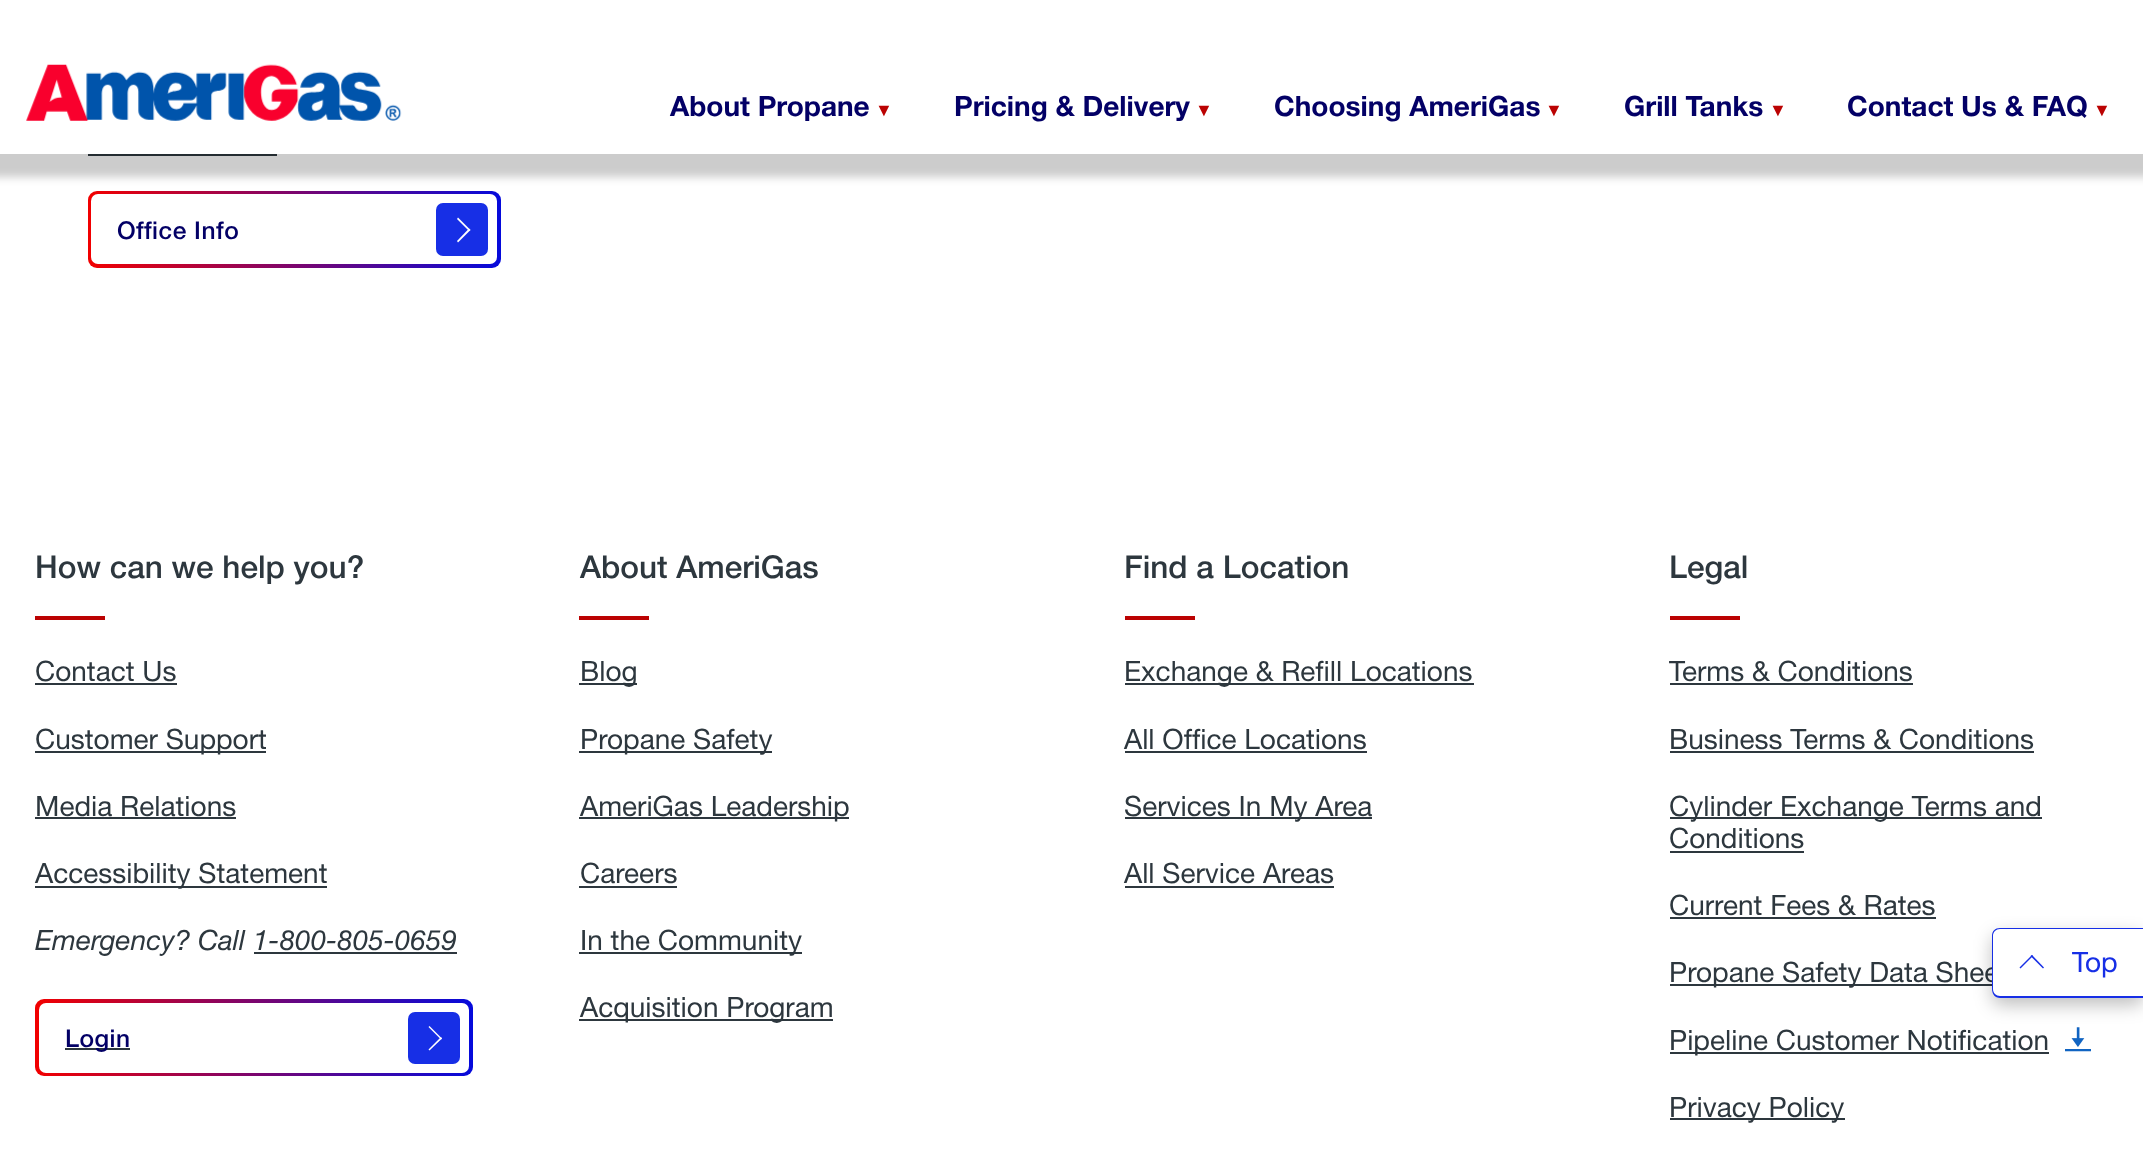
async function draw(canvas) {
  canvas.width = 2143
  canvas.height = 1172
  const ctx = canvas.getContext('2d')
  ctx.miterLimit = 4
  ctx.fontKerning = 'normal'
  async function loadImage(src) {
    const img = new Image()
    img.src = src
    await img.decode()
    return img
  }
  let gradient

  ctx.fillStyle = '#fff'
  ctx.fillRect(0, 0, 2143, 1172)
  ctx.fillStyle = '#2d373e'
  ctx.fillRect(88, 154, 189, 2)
  gradient = ctx.createLinearGradient(501, 229, 88, 229)
  gradient.addColorStop(0, '#050adc')
  gradient.addColorStop(1, '#f20000')
  ctx.fillStyle = gradient
  ctx.beginPath()
  ctx.roundRect(88, 191, 413, 77, 9)
  ctx.fill()
  ctx.fillStyle = '#00000033'
  ctx.filter = 'blur(4.5px)'
  ctx.beginPath()
  ctx.rect(-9, 5, 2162, 172)
  ctx.fill()
  ctx.filter = 'none'
  ctx.fillStyle = '#fff'
  ctx.fillRect(0, 0, 2143, 154)
  ctx.drawImage(await loadImage('image0.png'), 26, 64, 376, 57)
  ctx.font = 'bold 28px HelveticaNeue'
  ctx.fillStyle = '#030066'
  ctx.fillText('About Propane', 670, 116)
  ctx.font = 'bold 18px Liberation Sans'
  ctx.fillStyle = '#bb0202'
  ctx.fillText('▼', 875, 116)
  ctx.font = 'bold 28px HelveticaNeue'
  ctx.fillStyle = '#030066'
  ctx.fillText('Pricing & Delivery', 954, 116)
  ctx.font = 'bold 18px Liberation Sans'
  ctx.fillStyle = '#bb0202'
  ctx.fillText('▼', 1195, 116)
  ctx.font = 'bold 28px HelveticaNeue'
  ctx.fillStyle = '#030066'
  ctx.fillText('Choosing AmeriGas', 1274, 116)
  ctx.font = 'bold 18px Liberation Sans'
  ctx.fillStyle = '#bb0202'
  ctx.fillText('▼', 1545, 116)
  ctx.font = 'bold 28px HelveticaNeue'
  ctx.fillStyle = '#030066'
  ctx.fillText('Grill Tanks', 1624, 116)
  ctx.font = 'bold 18px Liberation Sans'
  ctx.fillStyle = '#bb0202'
  ctx.fillText('▼', 1769, 116)
  ctx.font = 'bold 28px HelveticaNeue'
  ctx.fillStyle = '#030066'
  ctx.fillText('Contact Us & FAQ', 1847, 116)
  ctx.font = 'bold 18px Liberation Sans'
  ctx.fillStyle = '#bb0202'
  ctx.fillText('▼', 2093, 116)
  ctx.fillStyle = '#fff'
  ctx.beginPath()
  ctx.roundRect(91, 194, 406, 70, 7)
  ctx.fill()
  ctx.letterSpacing = '0.5px'
  ctx.font = '500 24.5px HelveticaNeue'
  ctx.fillStyle = '#030066'
  ctx.fillText('Office Info', 117, 239)
  ctx.fillStyle = '#172fe6'
  ctx.beginPath()
  ctx.roundRect(436, 203, 52, 53, 7)
  ctx.fill()
  ctx.fillStyle = '#fff'
  ctx.beginPath()
  ctx.moveTo(457, 219)
  ctx.lineTo(458, 217.5)
  ctx.lineTo(470.5, 230)
  ctx.lineTo(469, 231)
  ctx.closePath()
  ctx.fill()
  ctx.beginPath()
  ctx.moveTo(457, 241)
  ctx.lineTo(469, 228.5)
  ctx.lineTo(470.5, 230)
  ctx.lineTo(458, 242.5)
  ctx.closePath()
  ctx.fill()
  ctx.letterSpacing = '0px'
  ctx.font = '500 31.5px HelveticaNeue'
  ctx.fillStyle = '#2d373e'
  ctx.fillText('How can we help you?', 35, 578)
  ctx.fillStyle = '#bb0202'
  ctx.fillRect(35, 616, 70, 4)
  ctx.font = '28px HelveticaNeue'
  ctx.fillStyle = '#2d373e'
  ctx.fillText('Contact Us', 35, 681)
  ctx.fillRect(35, 683, 142, 2)
  ctx.fillRect(35, 751, 231, 2)
  ctx.fillText('Customer Support', 35, 749)
  ctx.fillText('Media Relations', 35, 816)
  ctx.fillRect(35, 817, 201, 2)
  ctx.fillRect(35, 886, 292, 2)
  ctx.fillText('Accessibility Statement', 35, 883)
  ctx.font = 'italic 28px HelveticaNeue'
  ctx.fillText('Emergency? Call 1-800-805-0659', 35, 950)
  ctx.fillRect(254, 952, 203, 2)
  gradient = ctx.createLinearGradient(473, 1038, 35, 1038)
  gradient.addColorStop(0, '#050adc')
  gradient.addColorStop(1, '#f20000')
  ctx.fillStyle = gradient
  ctx.beginPath()
  ctx.roundRect(35, 999, 438, 77, 9)
  ctx.fill()
  ctx.fillStyle = '#fff'
  ctx.beginPath()
  ctx.roundRect(39, 1003, 430, 70, 7)
  ctx.fill()
  ctx.fillStyle = '#2d373e'
  ctx.fillRect(65, 1048, 65, 2)
  ctx.letterSpacing = '0.5px'
  ctx.font = '500 24.5px HelveticaNeue'
  ctx.fillStyle = '#030066'
  ctx.fillText('Login', 65, 1047)
  ctx.fillStyle = '#172fe6'
  ctx.beginPath()
  ctx.roundRect(408, 1012, 52, 52, 7)
  ctx.fill()
  ctx.fillStyle = '#fff'
  ctx.beginPath()
  ctx.moveTo(428.5, 1027)
  ctx.lineTo(429.5, 1026)
  ctx.lineTo(442, 1038.5)
  ctx.lineTo(441, 1039.5)
  ctx.closePath()
  ctx.fill()
  ctx.beginPath()
  ctx.moveTo(428.5, 1049.5)
  ctx.lineTo(441, 1037)
  ctx.lineTo(442, 1038.5)
  ctx.lineTo(429.5, 1050.5)
  ctx.closePath()
  ctx.fill()
  ctx.letterSpacing = '0px'
  ctx.font = '500 31.5px HelveticaNeue'
  ctx.fillStyle = '#2d373e'
  ctx.fillText('About AmeriGas', 580, 578)
  ctx.fillStyle = '#bb0202'
  ctx.fillRect(579, 616, 70, 4)
  ctx.fillStyle = '#2d373e'
  ctx.fillRect(579, 683, 58, 2)
  ctx.font = '28px HelveticaNeue'
  ctx.fillText('Blog', 580, 681)
  ctx.fillRect(579, 751, 193, 2)
  ctx.fillText('Propane Safety', 580, 749)
  ctx.fillRect(579, 817, 270, 2)
  ctx.fillText('AmeriGas Leadership', 580, 816)
  ctx.fillText('Careers', 580, 883)
  ctx.fillRect(579, 886, 98, 2)
  ctx.fillRect(579, 952, 223, 2)
  ctx.fillText('In the Community', 580, 950)
  ctx.fillRect(579, 1019, 254, 2)
  ctx.fillText('Acquisition Program', 580, 1017)
  ctx.font = '500 31.5px HelveticaNeue'
  ctx.fillText('Find a Location', 1124, 578)
  ctx.fillStyle = '#bb0202'
  ctx.fillRect(1125, 616, 70, 4)
  ctx.fillStyle = '#2d373e'
  ctx.fillRect(1125, 683, 349, 2)
  ctx.font = '28px HelveticaNeue'
  ctx.fillText('Exchange & Refill Locations', 1124, 681)
  ctx.fillText('All Office Locations', 1124, 749)
  ctx.fillRect(1125, 751, 242, 2)
  ctx.fillRect(1125, 817, 247, 2)
  ctx.fillText('Services In My Area', 1124, 816)
  ctx.fillText('All Service Areas', 1124, 883)
  ctx.fillRect(1125, 886, 209, 2)
  ctx.font = '500 31.5px HelveticaNeue'
  ctx.fillText('Legal', 1669, 578)
  ctx.fillStyle = '#bb0202'
  ctx.fillRect(1670, 616, 70, 4)
  ctx.font = '28px HelveticaNeue'
  ctx.fillStyle = '#2d373e'
  ctx.fillText('Terms & Conditions', 1669, 681)
  ctx.fillRect(1670, 683, 243, 2)
  ctx.fillText('Business Terms & Conditions', 1669, 749)
  ctx.fillRect(1670, 751, 364, 2)
  ctx.fillRect(1670, 817, 372, 2)
  ctx.fillText('Cylinder Exchange Terms and', 1669, 816)
  ctx.fillText('Conditions', 1669, 848)
  ctx.fillRect(1670, 851, 134, 2)
  ctx.fillText('Current Fees & Rates', 1669, 915)
  ctx.fillRect(1670, 917, 266, 2)
  ctx.fillRect(1670, 984, 322, 2)
  ctx.fillText('Propane Safety Data Shee', 1669, 982)
  ctx.drawImage(await loadImage('image1.png'), 2065, 1027, 26, 25)
  ctx.fillRect(1670, 1052, 379, 2)
  ctx.fillText('Pipeline Customer Notification', 1669, 1050)
  ctx.fillRect(1670, 1118, 175, 2)
  ctx.fillText('Privacy Policy', 1669, 1117)
  ctx.fillStyle = '#00000040'
  ctx.filter = 'blur(9px)'
  ctx.beginPath()
  ctx.roundRect(1992, 935, 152, 70, 9)
  ctx.fill()
  ctx.filter = 'none'
  ctx.fillStyle = '#fff'
  ctx.beginPath()
  ctx.moveTo(2001, 928)
  ctx.lineTo(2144, 928)
  ctx.lineTo(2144, 998)
  ctx.lineTo(2001, 998)
  ctx.bezierCurveTo(1996, 998, 1992, 994, 1992, 989)
  ctx.lineTo(1992, 937)
  ctx.bezierCurveTo(1992, 932, 1996, 928, 2001, 928)
  ctx.closePath()
  ctx.fill()
  ctx.fillStyle = '#172fe6'
  ctx.beginPath()
  ctx.moveTo(2000, 928)
  ctx.lineTo(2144, 928)
  ctx.lineTo(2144, 998)
  ctx.lineTo(2000, 998)
  ctx.bezierCurveTo(1995, 998, 1992, 994, 1992, 989)
  ctx.lineTo(1992, 936)
  ctx.bezierCurveTo(1992, 931, 1995, 928, 2000, 928)
  ctx.closePath()
  ctx.moveTo(2000, 929)
  ctx.lineTo(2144, 929)
  ctx.lineTo(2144, 996)
  ctx.lineTo(2000, 996)
  ctx.bezierCurveTo(1996, 996, 1993, 993, 1993, 989)
  ctx.lineTo(1993, 936)
  ctx.bezierCurveTo(1993, 932, 1996, 929, 2000, 929)
  ctx.closePath()
  ctx.fill('evenodd')
  ctx.beginPath()
  ctx.moveTo(2020.5, 968.5)
  ctx.lineTo(2019.5, 967.5)
  ctx.lineTo(2032, 955)
  ctx.lineTo(2033, 956)
  ctx.closePath()
  ctx.fill()
  ctx.beginPath()
  ctx.moveTo(2043, 968.5)
  ctx.lineTo(2030.5, 956)
  ctx.lineTo(2032, 955)
  ctx.lineTo(2044, 967.5)
  ctx.closePath()
  ctx.fill()
  ctx.fillText('Top', 2072, 972)
}

draw(document.querySelector('canvas'))
